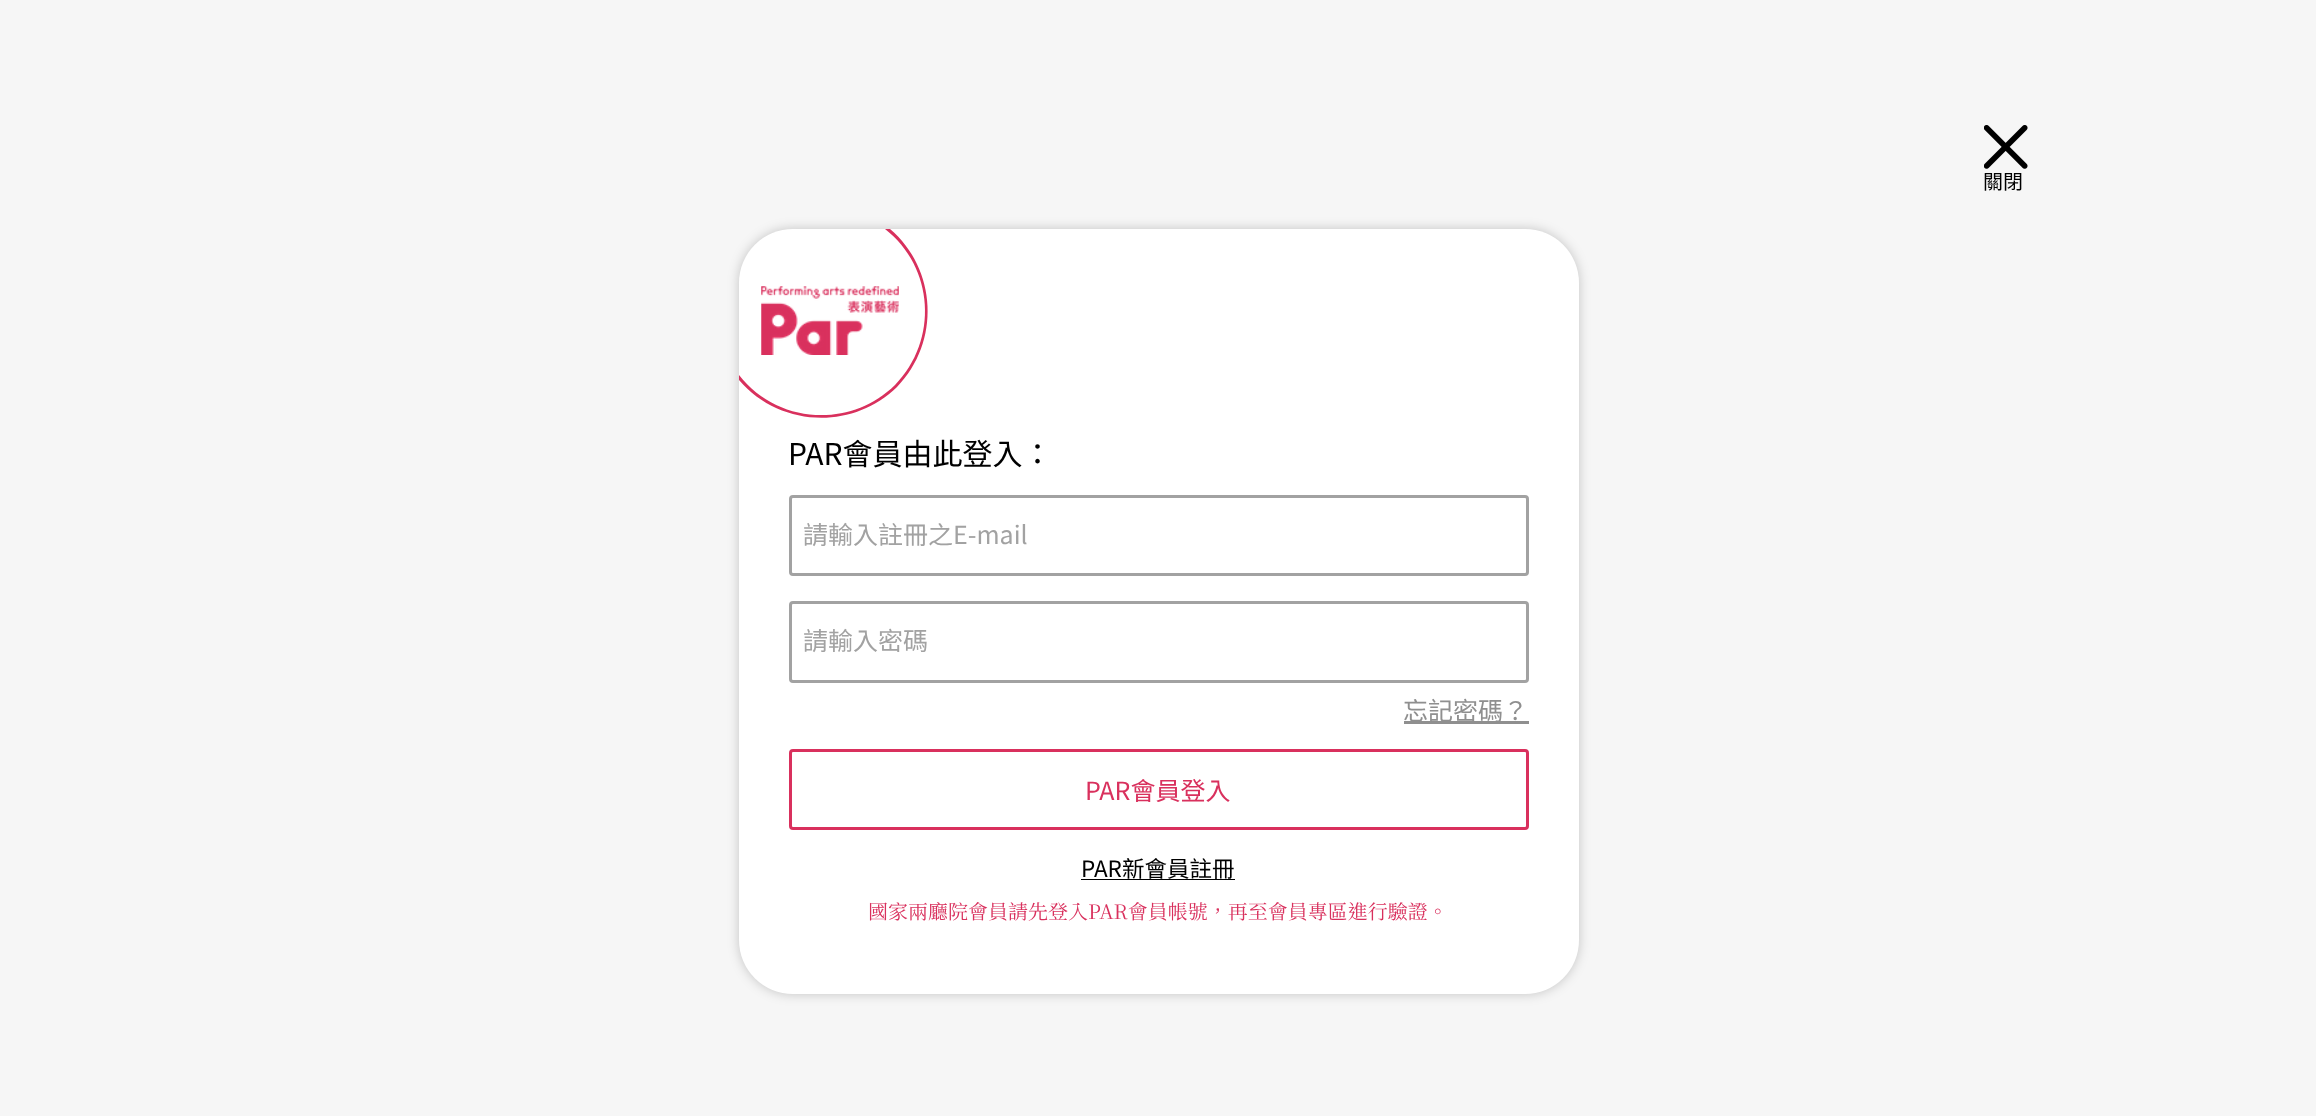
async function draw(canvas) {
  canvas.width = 2316
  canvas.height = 1116
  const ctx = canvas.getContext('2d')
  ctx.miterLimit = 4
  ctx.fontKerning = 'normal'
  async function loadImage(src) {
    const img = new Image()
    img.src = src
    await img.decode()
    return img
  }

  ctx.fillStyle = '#f6f6f6'
  ctx.fillRect(0, 0, 2316, 1116)
  ctx.drawImage(await loadImage('image0.png'), 1984, 125, 44, 44)
  ctx.font = '20px Noto Sans TC'
  ctx.fillStyle = '#000'
  ctx.fillText('關閉', 1983, 189)
  ctx.fillStyle = '#00000033'
  ctx.filter = 'blur(6px)'
  ctx.beginPath()
  ctx.roundRect(739, 229, 840, 765, 54)
  ctx.fill()
  ctx.filter = 'none'
  ctx.fillStyle = '#fff'
  ctx.beginPath()
  ctx.roundRect(739, 229, 840, 765, 54)
  ctx.fill()
  ctx.fillStyle = '#d9305d'
  ctx.beginPath()
  ctx.moveTo(890, 229)
  ctx.bezierCurveTo(937, 269, 941, 342, 897, 387)
  ctx.bezierCurveTo(852, 431, 779, 427, 739, 380)
  ctx.lineTo(739, 375)
  ctx.bezierCurveTo(777, 424, 850, 429, 895, 385)
  ctx.bezierCurveTo(939, 340, 934, 267, 885, 229)
  ctx.closePath()
  ctx.fill()
  ctx.drawImage(await loadImage('image1.png'), 761, 286, 138, 69)
  ctx.font = '30px Noto Sans TC'
  ctx.fillStyle = '#000'
  ctx.fillText('PAR會員由此登入：', 788, 465)
  ctx.beginPath()
  ctx.roundRect(790.5, 496.5, 737, 78, 2.5)
  ctx.strokeStyle = '#a2a2a2'
  ctx.lineWidth = 3
  ctx.stroke()
  ctx.font = '25px Noto Sans TC'
  ctx.fillStyle = '#a2a2a2'
  ctx.fillText('請輸入註冊之E-mail', 803, 544)
  ctx.beginPath()
  ctx.roundRect(790.5, 602.5, 737, 79, 2.5)
  ctx.stroke()
  ctx.fillText('請輸入密碼', 803, 650)
  ctx.fillStyle = '#8f8f8f'
  ctx.fillRect(1404, 721, 125, 3)
  ctx.fillText('忘記密碼？', 1403, 720)
  ctx.beginPath()
  ctx.roundRect(790.5, 750.5, 737, 78, 2.5)
  ctx.strokeStyle = '#d9305d'
  ctx.stroke()
  ctx.fillStyle = '#d9305d'
  ctx.fillText('PAR會員登入', 1085, 800)
  ctx.font = '22.5px Noto Sans TC'
  ctx.fillStyle = '#000'
  ctx.fillText('PAR新會員註冊', 1081, 877)
  ctx.fillRect(1081, 879, 154, 1)
  ctx.font = '20px Noto Serif TC'
  ctx.fillStyle = '#d9305d'
  ctx.fillText('國家兩廳院會員請先登入PAR會員帳號，再至會員專區進行驗證。', 868, 919)
}

draw(document.querySelector('canvas'))
